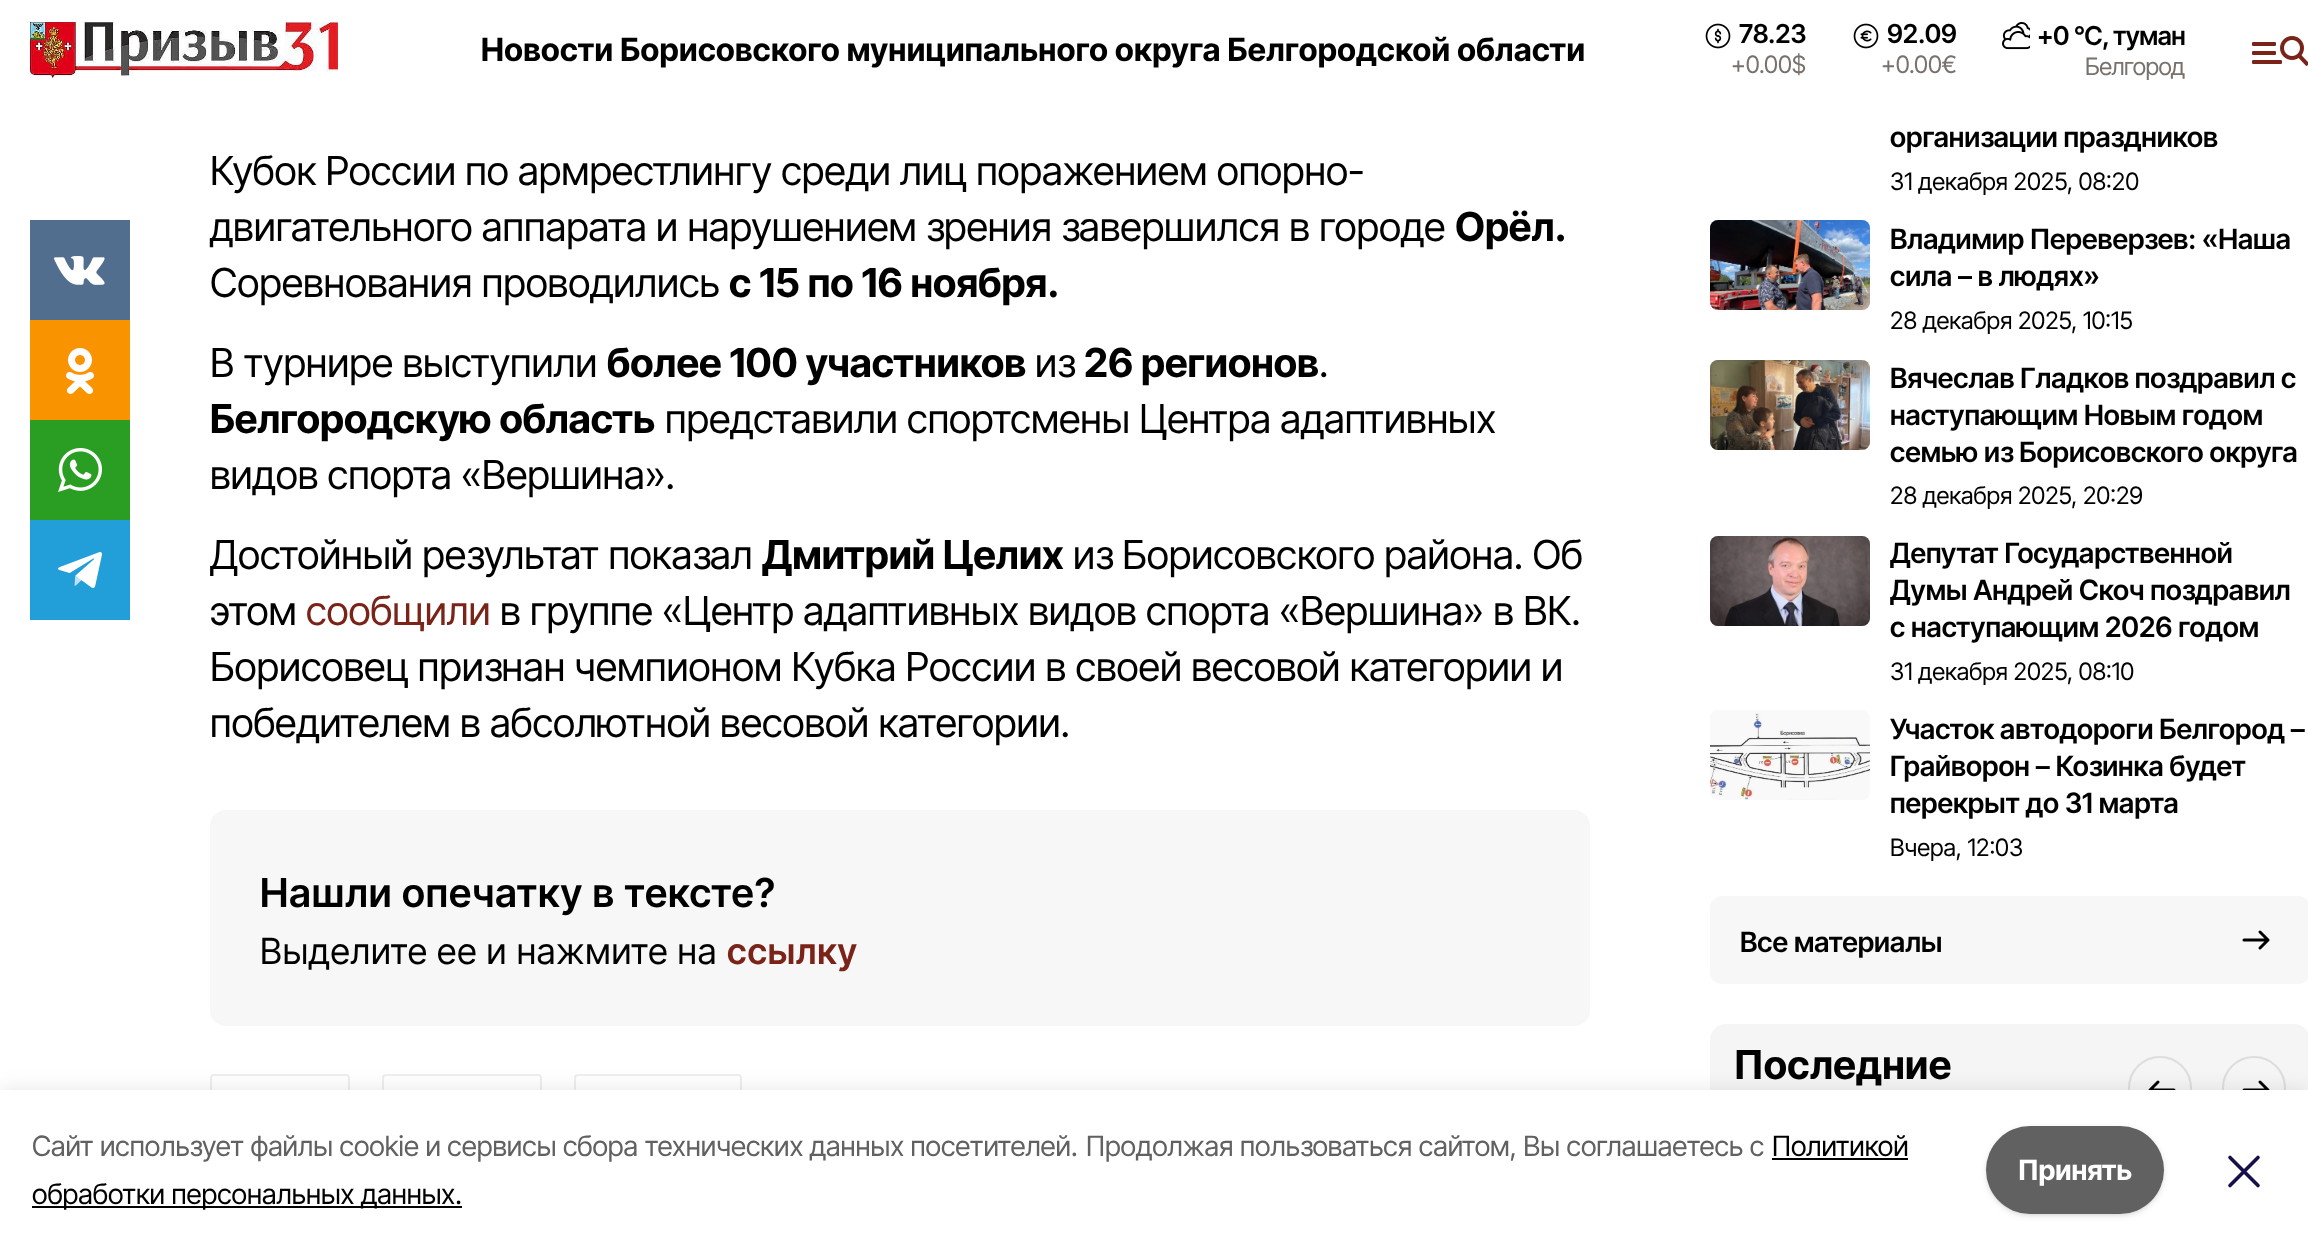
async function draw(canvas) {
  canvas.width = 2308
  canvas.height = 1250
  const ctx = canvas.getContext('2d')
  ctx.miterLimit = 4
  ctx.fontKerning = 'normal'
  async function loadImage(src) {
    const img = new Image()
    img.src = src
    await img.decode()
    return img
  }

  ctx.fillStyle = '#fff'
  ctx.fillRect(0, 0, 2308, 1250)
  ctx.drawImage(await loadImage('image0.png'), 30, 22, 308, 56)
  ctx.letterSpacing = '0.4px'
  ctx.font = 'bold 32px Inter Tight'
  ctx.fillStyle = '#000'
  ctx.fillText('Новости Борисовского муниципального округа Белгородской области', 481, 61)
  ctx.drawImage(await loadImage('image1.png'), 1705, 23, 26, 26)
  ctx.letterSpacing = '0px'
  ctx.font = '600 26px Inter Tight'
  ctx.fillText('78.23', 1739, 43)
  ctx.font = '24px Inter Tight'
  ctx.fillStyle = '#78716c'
  ctx.fillText('+0.00$', 1731, 73)
  ctx.drawImage(await loadImage('image2.png'), 1853, 23, 26, 26)
  ctx.font = '600 26px Inter Tight'
  ctx.fillStyle = '#000'
  ctx.fillText('92.09', 1887, 43)
  ctx.font = '24px Inter Tight'
  ctx.fillStyle = '#78716c'
  ctx.fillText('+0.00€', 1881, 73)
  ctx.drawImage(await loadImage('image3.png'), 2002, 22, 28, 28)
  ctx.letterSpacing = '-0.5px'
  ctx.font = '600 26px Inter Tight'
  ctx.fillStyle = '#000'
  ctx.fillText('+0 °С,', 2037, 45)
  ctx.fillText('туман', 2113, 45)
  ctx.font = '24px Inter Tight'
  ctx.fillStyle = '#78716c'
  ctx.fillText('Белгород', 2085, 75)
  ctx.drawImage(await loadImage('image4.png'), 2252, 36, 56, 30)
  ctx.fillStyle = '#526e8f'
  ctx.fillRect(30, 220, 100, 100)
  ctx.drawImage(await loadImage('image5.png'), 54, 256, 51, 29)
  ctx.fillStyle = '#f99400'
  ctx.fillRect(30, 320, 100, 100)
  ctx.drawImage(await loadImage('image6.png'), 66, 348, 28, 46)
  ctx.fillStyle = '#2a9e22'
  ctx.fillRect(30, 420, 100, 100)
  ctx.drawImage(await loadImage('image7.png'), 58, 448, 44, 44)
  ctx.fillStyle = '#229ed9'
  ctx.fillRect(30, 520, 100, 100)
  ctx.drawImage(await loadImage('image8.png'), 58, 552, 44, 36)
  ctx.letterSpacing = '0px'
  ctx.font = '40px Inter Tight'
  ctx.fillStyle = '#000'
  ctx.fillText('Кубок России по армрестлингу среди лиц поражением опорно-', 210, 185)
  ctx.fillText('двигательного аппарата и нарушением зрения завершился в городе', 210, 241)
  ctx.font = 'bold 40px Inter Tight'
  ctx.fillText('Орёл.', 1455, 241)
  ctx.font = '40px Inter Tight'
  ctx.fillText('Соревнования проводились', 210, 297)
  ctx.font = 'bold 40px Inter Tight'
  ctx.fillText('с 15 по 16 ноября.', 729, 297)
  ctx.font = '40px Inter Tight'
  ctx.fillText('В турнире выступили', 210, 377)
  ctx.font = 'bold 40px Inter Tight'
  ctx.fillText('более 100 участников', 607, 377)
  ctx.font = '40px Inter Tight'
  ctx.fillText('из', 1035, 377)
  ctx.font = 'bold 40px Inter Tight'
  ctx.fillText('26 регионов', 1084, 377)
  ctx.font = '40px Inter Tight'
  ctx.fillText('.', 1319, 377)
  ctx.font = 'bold 40px Inter Tight'
  ctx.fillText('Белгородскую область', 210, 433)
  ctx.font = '40px Inter Tight'
  ctx.fillText('представили спортсмены Центра адаптивных', 665, 433)
  ctx.fillText('видов спорта «Вершина».', 210, 489)
  ctx.fillText('Достойный результат показал', 210, 569)
  ctx.font = 'bold 40px Inter Tight'
  ctx.fillText('Дмитрий Целих', 762, 569)
  ctx.font = '40px Inter Tight'
  ctx.fillText('из Борисовского района. Об', 1073, 569)
  ctx.fillText('этом', 210, 625)
  ctx.fillStyle = '#7a2318'
  ctx.fillText('сообщили', 306, 625)
  ctx.fillStyle = '#000'
  ctx.fillText('в группе «Центр адаптивных видов спорта «Вершина» в ВК.', 500, 625)
  ctx.fillText('Борисовец признан чемпионом Кубка России в своей весовой категории и', 210, 681)
  ctx.fillText('победителем в абсолютной весовой категории.', 210, 737)
  ctx.fillStyle = '#f7f7f7'
  ctx.beginPath()
  ctx.roundRect(210, 810, 1380, 216, 16)
  ctx.fill()
  ctx.letterSpacing = '1px'
  ctx.font = '600 40px Inter Tight'
  ctx.fillStyle = '#000'
  ctx.fillText('Нашли опечатку в тексте?', 260, 907)
  ctx.letterSpacing = '0.9px'
  ctx.font = '36px Inter Tight'
  ctx.fillText('Выделите ее и нажмите на', 260, 964)
  ctx.font = '600 36px Inter Tight'
  ctx.fillStyle = '#7a2318'
  ctx.fillText('ссылку', 727, 964)
  ctx.beginPath()
  ctx.roundRect(211, 1075, 138, 58, 3)
  ctx.strokeStyle = '#eee'
  ctx.lineWidth = 2
  ctx.stroke()
  ctx.beginPath()
  ctx.roundRect(383, 1075, 158, 58, 3)
  ctx.stroke()
  ctx.beginPath()
  ctx.roundRect(575, 1075, 166, 58, 3)
  ctx.stroke()
  ctx.letterSpacing = '0px'
  ctx.font = '600 28px Inter Tight'
  ctx.fillStyle = '#000'
  ctx.fillText('организации праздников', 1890, 147)
  ctx.font = '24px Inter Tight'
  ctx.fillText('31 декабря 2025, 08:20', 1890, 190)
  ctx.drawImage(await loadImage('image9.png'), 1710, 220, 160, 90)
  ctx.drawImage(await loadImage('image10.png'), 1710, 220, 160, 90)
  ctx.font = '600 28px Inter Tight'
  ctx.fillText('Владимир Переверзев: «Наша', 1890, 249)
  ctx.fillText('сила – в людях»', 1890, 286)
  ctx.font = '24px Inter Tight'
  ctx.fillText('28 декабря 2025, 10:15', 1890, 329)
  ctx.drawImage(await loadImage('image11.png'), 1710, 360, 160, 90)
  ctx.drawImage(await loadImage('image12.png'), 1710, 360, 160, 90)
  ctx.font = '600 28px Inter Tight'
  ctx.fillText('Вячеслав Гладков поздравил с', 1890, 388)
  ctx.fillText('наступающим Новым годом', 1890, 425)
  ctx.fillText('семью из Борисовского округа', 1890, 462)
  ctx.font = '24px Inter Tight'
  ctx.fillText('28 декабря 2025, 20:29', 1890, 504)
  ctx.drawImage(await loadImage('image13.png'), 1710, 536, 160, 90)
  ctx.drawImage(await loadImage('image14.png'), 1710, 536, 160, 90)
  ctx.font = '600 28px Inter Tight'
  ctx.fillText('Депутат Государственной', 1890, 563)
  ctx.fillText('Думы Андрей Скоч поздравил', 1890, 600)
  ctx.fillText('с наступающим 2026 годом', 1890, 637)
  ctx.font = '24px Inter Tight'
  ctx.fillText('31 декабря 2025, 08:10', 1890, 680)
  ctx.drawImage(await loadImage('image15.png'), 1710, 710, 160, 90)
  ctx.drawImage(await loadImage('image16.png'), 1710, 710, 160, 90)
  ctx.font = '600 28px Inter Tight'
  ctx.fillText('Участок автодороги Белгород –', 1890, 739)
  ctx.fillText('Грайворон – Козинка будет', 1890, 776)
  ctx.fillText('перекрыт до 31 марта', 1890, 813)
  ctx.font = '24px Inter Tight'
  ctx.fillText('Вчера, 12:03', 1890, 856)
  ctx.fillStyle = '#f7f7f7'
  ctx.beginPath()
  ctx.roundRect(1710, 896, 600, 88, 12)
  ctx.fill()
  ctx.font = '600 28px Inter Tight'
  ctx.fillStyle = '#000'
  ctx.fillText('Все материалы', 1740, 952)
  ctx.beginPath()
  ctx.moveTo(2260, 948)
  ctx.lineTo(2268, 940)
  ctx.moveTo(2268, 940)
  ctx.lineTo(2260, 932)
  ctx.moveTo(2268, 940)
  ctx.lineTo(2244, 940)
  ctx.strokeStyle = '#000'
  ctx.lineWidth = 3
  ctx.lineCap = 'round'
  ctx.lineJoin = 'round'
  ctx.stroke()
  ctx.fillStyle = '#f5f5f5'
  ctx.beginPath()
  ctx.roundRect(1710, 1024, 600, 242, 16)
  ctx.fill()
  ctx.letterSpacing = '0.4px'
  ctx.font = 'bold 40px Inter Tight'
  ctx.fillStyle = '#000'
  ctx.fillText('Последние', 1734, 1079)
  ctx.beginPath()
  ctx.arc(2160, 1088, 31, 0, 2 * Math.PI)
  ctx.strokeStyle = '#ddd'
  ctx.lineWidth = 2
  ctx.stroke()
  ctx.beginPath()
  ctx.moveTo(2158, 1098)
  ctx.lineTo(2150, 1090)
  ctx.moveTo(2150, 1090)
  ctx.lineTo(2158, 1082)
  ctx.moveTo(2150, 1090)
  ctx.lineTo(2174, 1090)
  ctx.strokeStyle = '#000'
  ctx.lineWidth = 3
  ctx.stroke()
  ctx.beginPath()
  ctx.arc(2254, 1088, 31, 0, 2 * Math.PI)
  ctx.strokeStyle = '#ddd'
  ctx.lineWidth = 2
  ctx.stroke()
  ctx.beginPath()
  ctx.moveTo(2260, 1098)
  ctx.lineTo(2268, 1090)
  ctx.moveTo(2268, 1090)
  ctx.lineTo(2260, 1082)
  ctx.moveTo(2268, 1090)
  ctx.lineTo(2244, 1090)
  ctx.strokeStyle = '#000'
  ctx.lineWidth = 3
  ctx.stroke()
  ctx.fillStyle = '#0000001a'
  ctx.filter = 'blur(10px)'
  ctx.beginPath()
  ctx.rect(0, 1090, 2308, 160)
  ctx.fill()
  ctx.filter = 'none'
  ctx.fillStyle = '#fff'
  ctx.fillRect(0, 1090, 2308, 160)
  ctx.letterSpacing = '0px'
  ctx.font = '28px Inter Tight'
  ctx.fillStyle = '#616161'
  ctx.fillText('Cайт использует файлы cookie и сервисы сбора технических данных посетителей.', 32, 1156)
  ctx.fillText('Продолжая пользоваться сайтом, Вы соглашаетесь с', 1086, 1156)
  ctx.fillStyle = '#000'
  ctx.fillText('Политикой', 1772, 1156)
  ctx.fillRect(1772, 1158, 136, 2)
  ctx.fillRect(32, 1206, 430, 2)
  ctx.fillText('обработки персональных данных.', 32, 1204)
  ctx.fillStyle = '#0000001a'
  ctx.filter = 'blur(2px)'
  ctx.beginPath()
  ctx.roundRect(1988, 1130, 174, 84, 42)
  ctx.fill()
  ctx.filter = 'none'
  ctx.filter = 'blur(3px)'
  ctx.beginPath()
  ctx.roundRect(1986, 1128, 178, 88, 44)
  ctx.fill()
  ctx.filter = 'none'
  ctx.fillStyle = '#616161'
  ctx.beginPath()
  ctx.roundRect(1986, 1126, 178, 88, 44)
  ctx.fill()
  ctx.font = 'bold 28px Inter Tight'
  ctx.fillStyle = '#fff'
  ctx.fillText('Принять', 2018, 1180)
  ctx.beginPath()
  ctx.moveTo(2230, 1185.5)
  ctx.lineTo(2258, 1157.5)
  ctx.moveTo(2258, 1185.5)
  ctx.lineTo(2230, 1157.5)
  ctx.strokeStyle = '#170f49'
  ctx.lineWidth = 3.6
  ctx.stroke()
}

draw(document.querySelector('canvas'))
